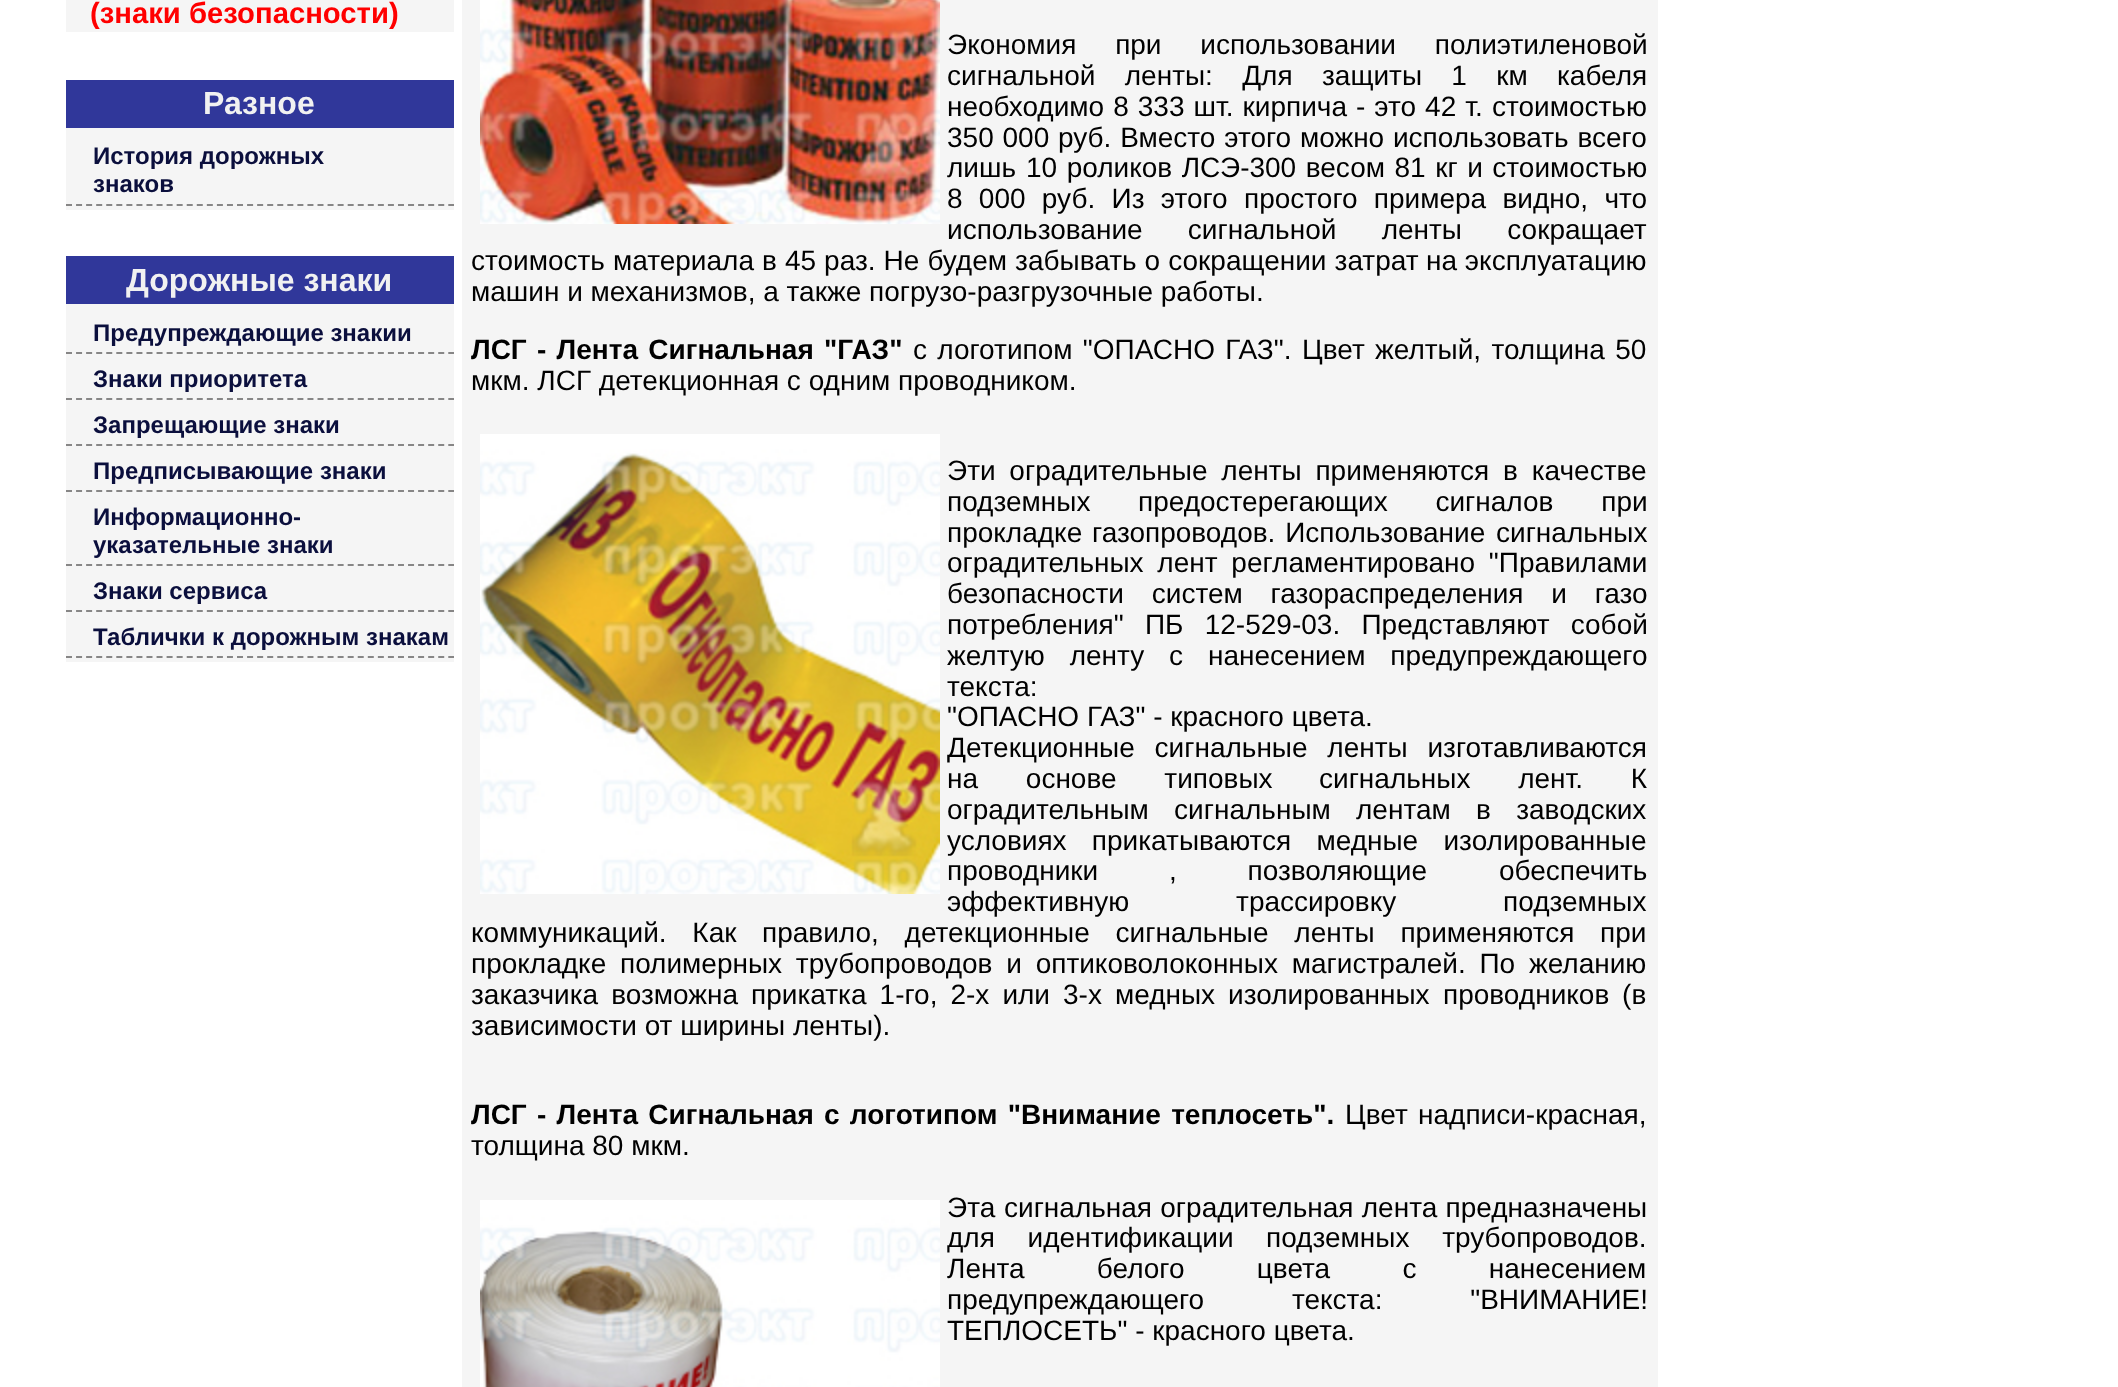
async function draw(canvas) {
  canvas.width = 2118
  canvas.height = 1387
  const ctx = canvas.getContext('2d')
  ctx.miterLimit = 4
  ctx.fontKerning = 'normal'
  async function loadImage(src) {
    const img = new Image()
    img.src = src
    await img.decode()
    return img
  }

  ctx.fillStyle = '#fff'
  ctx.fillRect(0, 0, 2118, 1387)
  ctx.fillStyle = '#f5f5f5'
  ctx.fillRect(66, 0, 388, 32)
  ctx.font = 'bold 29.25px Liberation Sans'
  ctx.fillStyle = '#f00'
  ctx.fillText('(знаки безопасности)', 90, 23)
  ctx.fillStyle = '#f5f5f5'
  ctx.fillRect(66, 128, 388, 82)
  ctx.fillStyle = '#30379a'
  ctx.fillRect(66, 80, 388, 48)
  ctx.font = 'bold 32px Liberation Sans'
  ctx.fillStyle = '#f1f1f1'
  ctx.fillText('Разное', 203, 114)
  ctx.beginPath()
  ctx.moveTo(66, 205)
  ctx.lineTo(454, 205)
  ctx.strokeStyle = '#878686'
  ctx.lineWidth = 2
  ctx.setLineDash([6, 4.06])
  ctx.stroke()
  ctx.font = 'bold 24px Liberation Sans'
  ctx.fillStyle = '#0b0f3d'
  ctx.fillText('История дорожных', 93, 164)
  ctx.fillText('знаков', 93, 192)
  ctx.fillStyle = '#f5f5f5'
  ctx.fillRect(66, 304, 388, 358)
  ctx.fillStyle = '#30379a'
  ctx.fillRect(66, 256, 388, 48)
  ctx.font = 'bold 32px Liberation Sans'
  ctx.fillStyle = '#f1f1f1'
  ctx.fillText('Дорожные знаки', 126, 291)
  ctx.beginPath()
  ctx.moveTo(66, 353)
  ctx.lineTo(454, 353)
  ctx.stroke()
  ctx.font = 'bold 24px Liberation Sans'
  ctx.fillStyle = '#0b0f3d'
  ctx.fillText('Предупреждающие знакии', 93, 341)
  ctx.beginPath()
  ctx.moveTo(66, 399)
  ctx.lineTo(454, 399)
  ctx.stroke()
  ctx.fillText('Знаки приоритета', 93, 387)
  ctx.beginPath()
  ctx.moveTo(66, 445)
  ctx.lineTo(454, 445)
  ctx.stroke()
  ctx.fillText('Запрещающие знаки', 93, 433)
  ctx.beginPath()
  ctx.moveTo(66, 491)
  ctx.lineTo(454, 491)
  ctx.stroke()
  ctx.fillText('Предписывающие знаки', 93, 479)
  ctx.beginPath()
  ctx.moveTo(66, 565)
  ctx.lineTo(454, 565)
  ctx.stroke()
  ctx.fillText('Информационно-', 93, 525)
  ctx.fillText('указательные знаки', 93, 553)
  ctx.beginPath()
  ctx.moveTo(66, 611)
  ctx.lineTo(454, 611)
  ctx.stroke()
  ctx.fillText('Знаки сервиса', 93, 599)
  ctx.beginPath()
  ctx.moveTo(66, 657)
  ctx.lineTo(454, 657)
  ctx.stroke()
  ctx.fillText('Таблички к дорожным знакам', 93, 645)
  ctx.fillStyle = '#f5f5f5'
  ctx.fillRect(462, 0, 1196, 1387)
  ctx.drawImage(await loadImage('image0.png'), 480, 0, 460, 224)
  ctx.wordSpacing = '31px'
  ctx.font = '28px Liberation Sans'
  ctx.fillStyle = '#000'
  ctx.fillText('Экономия при использовании полиэтиленовой', 947, 54)
  ctx.wordSpacing = '21.5px'
  ctx.fillText('сигнальной ленты: Для', 947, 85)
  ctx.fillText('защиты 1 км кабеля', 1322, 85)
  ctx.wordSpacing = '1.25px'
  ctx.fillText('необходимо 8 333 шт. кирпича - это 42 т.', 947, 116)
  ctx.wordSpacing = '0px'
  ctx.fillText('стоимостью', 1492, 116)
  ctx.wordSpacing = '1px'
  ctx.fillText('350 000 руб. Вместо этого можно использовать всего', 947, 147)
  ctx.wordSpacing = '0px'
  ctx.fillText('лишь', 947, 177)
  ctx.wordSpacing = '1.75px'
  ctx.fillText('10 роликов ЛСЭ-300 весом 81 кг и стоимостью', 1026, 177)
  ctx.wordSpacing = '8.5px'
  ctx.fillText('8 000 руб. Из этого', 947, 208)
  ctx.fillText('простого примера видно, что', 1244, 208)
  ctx.wordSpacing = '37.5px'
  ctx.fillText('использование сигнальной ленты сокращает', 947, 239)
  ctx.wordSpacing = '0.25px'
  ctx.fillText('стоимость материала в 45 раз. Не будем забывать о сокращении затрат', 471, 270)
  ctx.wordSpacing = '0px'
  ctx.fillText('на эксплуатацию', 1426, 270)
  ctx.fillText('машин и механизмов, а также погрузо-разгрузочные работы.', 471, 301)
  ctx.wordSpacing = '2.5px'
  ctx.font = 'bold 28px Liberation Sans'
  ctx.fillText('ЛСГ - Лента Сигнальная "ГАЗ"', 471, 359)
  ctx.font = '28px Liberation Sans'
  ctx.fillText('с логотипом "ОПАСНО ГАЗ".', 913, 359)
  ctx.fillText('Цвет желтый, толщина 50', 1302, 359)
  ctx.wordSpacing = '0px'
  ctx.fillText('мкм. ЛСГ детекционная с одним проводником.', 471, 390)
  ctx.drawImage(await loadImage('image1.png'), 480, 434, 460, 460)
  ctx.wordSpacing = '6px'
  ctx.fillText('Эти оградительные ленты применяются в качестве', 947, 480)
  ctx.wordSpacing = '0px'
  ctx.fillText('подземных', 947, 511)
  ctx.wordSpacing = '40px'
  ctx.fillText('предостерегающих сигналов при', 1138, 511)
  ctx.wordSpacing = '2px'
  ctx.fillText('прокладке газопроводов. Использование', 947, 542)
  ctx.wordSpacing = '0px'
  ctx.fillText('сигнальных', 1496, 542)
  ctx.wordSpacing = '6px'
  ctx.fillText('оградительных лент регламентировано "Правилами', 947, 572)
  ctx.wordSpacing = '20px'
  ctx.fillText('безопасности систем газораспределения и газо', 947, 603)
  ctx.wordSpacing = '13.5px'
  ctx.fillText('потребления" ПБ 12-529-03. Представляют собой', 947, 634)
  ctx.wordSpacing = '17px'
  ctx.fillText('желтую ленту с', 947, 665)
  ctx.fillText('нанесением предупреждающего', 1208, 665)
  ctx.wordSpacing = '0px'
  ctx.fillText('текста:', 947, 696)
  ctx.fillText('"ОПАСНО ГАЗ" - красного цвета.', 947, 726)
  ctx.wordSpacing = '12px'
  ctx.fillText('Детекционные сигнальные ленты изготавливаются', 947, 757)
  ctx.wordSpacing = '40px'
  ctx.fillText('на основе типовых', 947, 788)
  ctx.fillText('сигнальных лент. К', 1319, 788)
  ctx.wordSpacing = '17.5px'
  ctx.fillText('оградительным сигнальным лентам в заводских', 947, 819)
  ctx.fillText('условиях прикатываются медные изолированные', 947, 850)
  ctx.wordSpacing = '63px'
  ctx.fillText('проводники , позволяющие', 947, 880)
  ctx.wordSpacing = '0px'
  ctx.fillText('обеспечить', 1499, 880)
  ctx.wordSpacing = '99px'
  ctx.fillText('эффективную трассировку подземных', 947, 911)
  ctx.wordSpacing = '18px'
  ctx.fillText('коммуникаций. Как', 471, 942)
  ctx.fillText('правило, детекционные сигнальные ленты применяются при', 762, 942)
  ctx.wordSpacing = '0px'
  ctx.fillText('прокладке', 471, 973)
  ctx.wordSpacing = '6px'
  ctx.fillText('полимерных трубопроводов и оптиковолоконных магистралей. По желанию', 620, 973)
  ctx.wordSpacing = '5.25px'
  ctx.fillText('заказчика возможна прикатка 1-го, 2-х или 3-х медных изолированных', 471, 1004)
  ctx.wordSpacing = '5px'
  ctx.fillText('проводников (в', 1443, 1004)
  ctx.wordSpacing = '0px'
  ctx.fillText('зависимости от ширины ленты).', 471, 1035)
  ctx.wordSpacing = '2.5px'
  ctx.font = 'bold 28px Liberation Sans'
  ctx.fillText('ЛСГ - Лента Сигнальная с логотипом "Внимание теплосеть".', 471, 1124)
  ctx.font = '28px Liberation Sans'
  ctx.fillText('Цвет надписи-красная,', 1345, 1124)
  ctx.wordSpacing = '0px'
  ctx.fillText('толщина 80 мкм.', 471, 1155)
  ctx.drawImage(await loadImage('image2.png'), 480, 1200, 460, 187)
  ctx.fillText('Эта', 947, 1217)
  ctx.wordSpacing = '0.5px'
  ctx.fillText('сигнальная оградительная лента предназначены', 1004, 1217)
  ctx.wordSpacing = '25px'
  ctx.fillText('для идентификации', 947, 1247)
  ctx.fillText('подземных трубопроводов.', 1266, 1247)
  ctx.wordSpacing = '64.5px'
  ctx.fillText('Лента белого цвета с нанесением', 947, 1278)
  ctx.wordSpacing = '80px'
  ctx.fillText('предупреждающего текста: "ВНИМАНИЕ!', 947, 1309)
  ctx.wordSpacing = '0px'
  ctx.fillText('ТЕПЛОСЕТЬ" - красного цвета.', 947, 1340)
}

draw(document.querySelector('canvas'))
